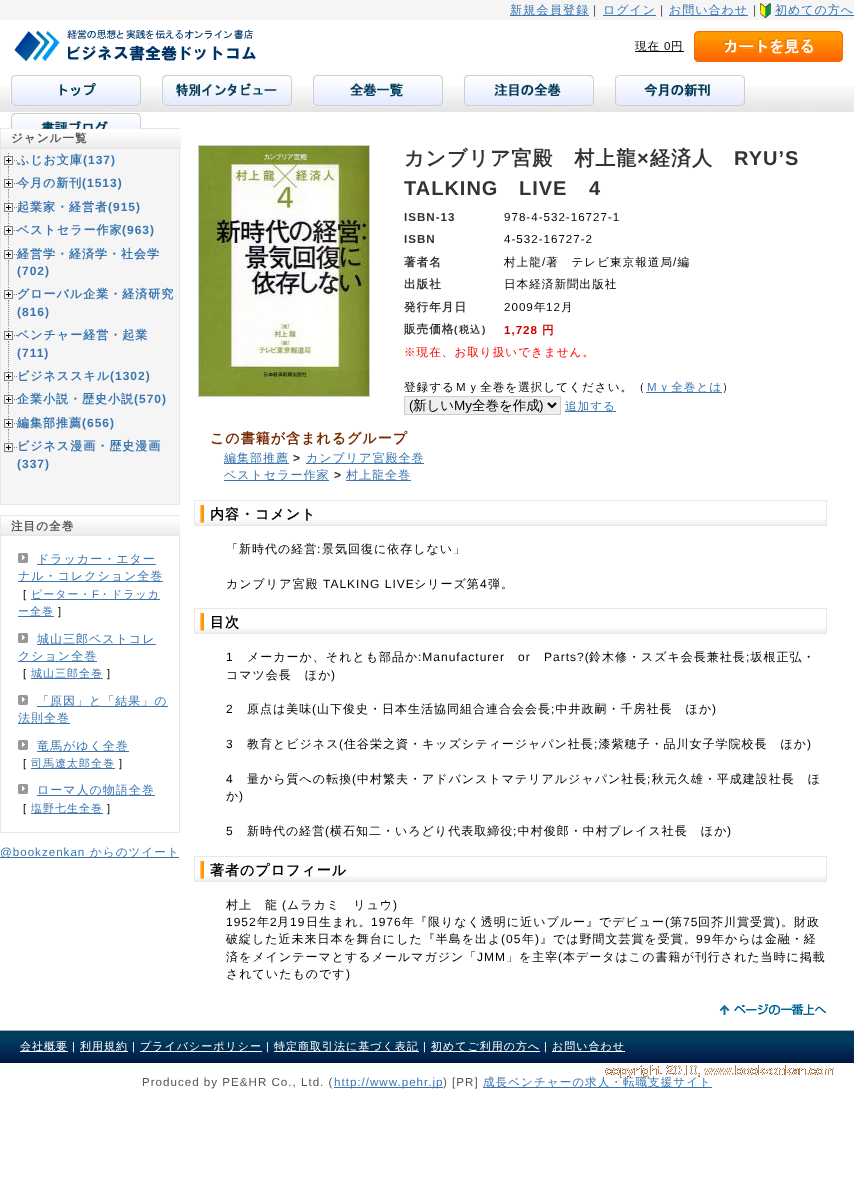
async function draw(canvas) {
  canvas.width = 854
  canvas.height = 1193
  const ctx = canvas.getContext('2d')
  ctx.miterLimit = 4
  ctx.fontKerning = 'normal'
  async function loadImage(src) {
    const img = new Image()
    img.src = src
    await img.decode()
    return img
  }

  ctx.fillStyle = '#fff'
  ctx.fillRect(0, 0, 854, 1193)
  ctx.fillStyle = '#f5f5f5'
  ctx.fillRect(0, 0, 854, 20)
  ctx.fillStyle = '#3a75af'
  ctx.fillRect(510, 15, 79, 1)
  ctx.letterSpacing = '1.25px'
  ctx.font = '500 12px WenQuanYi Zen Hei'
  ctx.fillText('新規会員登録', 510, 14)
  ctx.font = '12px Liberation Sans'
  ctx.fillStyle = '#555'
  ctx.fillText('|', 593, 14)
  ctx.fillStyle = '#3a75af'
  ctx.fillRect(603, 15, 53, 1)
  ctx.letterSpacing = '1px'
  ctx.font = '500 12px WenQuanYi Zen Hei'
  ctx.fillText('ログイン', 603, 14)
  ctx.font = '12px Liberation Sans'
  ctx.fillStyle = '#555'
  ctx.fillText('|', 660, 14)
  ctx.fillStyle = '#3a75af'
  ctx.fillRect(669, 15, 79, 1)
  ctx.font = '500 12px WenQuanYi Zen Hei'
  ctx.fillText('お問い合わせ', 669, 14)
  ctx.font = '12px Liberation Sans'
  ctx.fillStyle = '#555'
  ctx.fillText('|', 753, 14)
  ctx.drawImage(await loadImage('image0.png'), 760, 3, 11, 15)
  ctx.fillStyle = '#3a75af'
  ctx.fillRect(775, 15, 79, 1)
  ctx.font = '500 12px WenQuanYi Zen Hei'
  ctx.fillText('初めての方へ', 775, 14)
  ctx.drawImage(await loadImage('image1.png'), 14, 29, 242, 33)
  ctx.fillStyle = '#000'
  ctx.fillRect(635, 51, 49, 1)
  ctx.font = '500 11.6px WenQuanYi Zen Hei'
  ctx.fillText('現在', 635, 50)
  ctx.font = '11.6px Liberation Sans'
  ctx.fillText('0', 664, 50)
  ctx.font = '500 11.6px WenQuanYi Zen Hei'
  ctx.fillText('円', 671, 50)
  ctx.drawImage(await loadImage('image2.png'), 694, 31, 149, 31)
  ctx.drawImage(await loadImage('image3.png'), 0, 86, 854, 26)
  ctx.drawImage(await loadImage('image4.png'), 10, 74, 131, 32)
  ctx.drawImage(await loadImage('image5.png'), 161, 75, 131, 31)
  ctx.drawImage(await loadImage('image6.png'), 312, 74, 131, 32)
  ctx.drawImage(await loadImage('image7.png'), 463, 75, 131, 31)
  ctx.drawImage(await loadImage('image8.png'), 614, 74, 131, 32)
  ctx.strokeStyle = '#e8e8e8'
  ctx.strokeRect(0.5, 128.5, 179, 376)
  ctx.drawImage(await loadImage('image9.png'), 10, 113, 131, 16)
  ctx.drawImage(await loadImage('image10.png'), 1, 129, 180, 20)
  ctx.font = 'bold 11.6px WenQuanYi Zen Hei'
  ctx.fillStyle = '#555'
  ctx.fillText('ジャンル一覧', 11, 142)
  ctx.fillStyle = '#f5f5f5'
  ctx.fillRect(1, 149, 178, 355)
  ctx.drawImage(await loadImage('image11.png'), 8, 153, 1, 22)
  ctx.drawImage(await loadImage('image12.png'), 4, 156, 13, 11)
  ctx.font = 'bold 12px WenQuanYi Zen Hei'
  ctx.fillStyle = '#3a75af'
  ctx.fillText('ふじお文庫', 17, 164)
  ctx.font = 'bold 12px Liberation Sans'
  ctx.fillText('(137)', 83, 164)
  ctx.drawImage(await loadImage('image13.png'), 8, 176, 1, 23)
  ctx.drawImage(await loadImage('image12.png'), 4, 179, 13, 11)
  ctx.font = 'bold 12px WenQuanYi Zen Hei'
  ctx.fillText('今月の新刊', 17, 187)
  ctx.font = 'bold 12px Liberation Sans'
  ctx.fillText('(1513)', 82, 187)
  ctx.drawImage(await loadImage('image11.png'), 8, 200, 1, 22)
  ctx.drawImage(await loadImage('image12.png'), 4, 203, 13, 11)
  ctx.font = 'bold 12px WenQuanYi Zen Hei'
  ctx.fillText('起業家・経営者', 17, 211)
  ctx.font = 'bold 12px Liberation Sans'
  ctx.fillText('(915)', 108, 211)
  ctx.drawImage(await loadImage('image13.png'), 8, 223, 1, 23)
  ctx.drawImage(await loadImage('image12.png'), 4, 226, 13, 11)
  ctx.font = 'bold 12px WenQuanYi Zen Hei'
  ctx.fillText('ベストセラー作家', 17, 234)
  ctx.font = 'bold 12px Liberation Sans'
  ctx.fillText('(963)', 122, 234)
  ctx.drawImage(await loadImage('image14.png'), 8, 247, 1, 39)
  ctx.drawImage(await loadImage('image12.png'), 4, 250, 13, 11)
  ctx.font = 'bold 12px WenQuanYi Zen Hei'
  ctx.fillText('経営学・経済学・社会学', 17, 258)
  ctx.font = 'bold 12px Liberation Sans'
  ctx.fillText('(702)', 17, 275)
  ctx.drawImage(await loadImage('image15.png'), 8, 287, 1, 40)
  ctx.drawImage(await loadImage('image12.png'), 4, 290, 13, 11)
  ctx.font = 'bold 12px WenQuanYi Zen Hei'
  ctx.fillText('グローバル企業・経済研究', 17, 298)
  ctx.font = 'bold 12px Liberation Sans'
  ctx.fillText('(816)', 17, 316)
  ctx.drawImage(await loadImage('image15.png'), 8, 328, 1, 40)
  ctx.drawImage(await loadImage('image12.png'), 4, 331, 13, 11)
  ctx.font = 'bold 12px WenQuanYi Zen Hei'
  ctx.fillText('ベンチャー経営・起業', 17, 339)
  ctx.font = 'bold 12px Liberation Sans'
  ctx.fillText('(711)', 17, 357)
  ctx.drawImage(await loadImage('image11.png'), 8, 369, 1, 22)
  ctx.drawImage(await loadImage('image12.png'), 4, 372, 13, 11)
  ctx.font = 'bold 12px WenQuanYi Zen Hei'
  ctx.fillText('ビジネススキル', 17, 380)
  ctx.font = 'bold 12px Liberation Sans'
  ctx.fillText('(1302)', 110, 380)
  ctx.drawImage(await loadImage('image13.png'), 8, 392, 1, 23)
  ctx.drawImage(await loadImage('image12.png'), 4, 395, 13, 11)
  ctx.font = 'bold 12px WenQuanYi Zen Hei'
  ctx.fillText('企業小説・歴史小説', 17, 403)
  ctx.font = 'bold 12px Liberation Sans'
  ctx.fillText('(570)', 134, 403)
  ctx.drawImage(await loadImage('image11.png'), 8, 416, 1, 22)
  ctx.drawImage(await loadImage('image12.png'), 4, 419, 13, 11)
  ctx.font = 'bold 12px WenQuanYi Zen Hei'
  ctx.fillText('編集部推薦', 17, 427)
  ctx.font = 'bold 12px Liberation Sans'
  ctx.fillText('(656)', 82, 427)
  ctx.drawImage(await loadImage('image16.png'), 4, 439, 13, 14)
  ctx.font = 'bold 12px WenQuanYi Zen Hei'
  ctx.fillText('ビジネス漫画・歴史漫画', 17, 450)
  ctx.font = 'bold 12px Liberation Sans'
  ctx.fillText('(337)', 17, 468)
  ctx.strokeRect(0.5, 515.5, 179, 317)
  ctx.drawImage(await loadImage('image17.png'), 1, 516, 179, 20)
  ctx.font = 'bold 11.6px WenQuanYi Zen Hei'
  ctx.fillStyle = '#555'
  ctx.fillText('注目の全巻', 11, 530)
  ctx.drawImage(await loadImage('image18.png'), 18, 553, 10, 10)
  ctx.fillStyle = '#3a75af'
  ctx.fillRect(37, 564, 119, 1)
  ctx.font = '500 12px WenQuanYi Zen Hei'
  ctx.fillText('ドラッカー・エター', 37, 563)
  ctx.fillRect(18, 581, 145, 1)
  ctx.fillText('ナル・コレクション全巻', 18, 580)
  ctx.font = '11px Liberation Sans'
  ctx.fillStyle = '#000'
  ctx.fillText('[', 23, 598)
  ctx.fillStyle = '#3a75af'
  ctx.fillRect(31, 599, 129, 1)
  ctx.font = '500 11px WenQuanYi Zen Hei'
  ctx.fillText('ピーター・', 31, 598)
  ctx.font = '11px Liberation Sans'
  ctx.fillText('F', 92, 598)
  ctx.font = '500 11px WenQuanYi Zen Hei'
  ctx.fillText('・ドラッカ', 99, 598)
  ctx.fillRect(18, 616, 36, 1)
  ctx.fillText('ー全巻', 18, 615)
  ctx.font = '11px Liberation Sans'
  ctx.fillStyle = '#000'
  ctx.fillText(']', 58, 615)
  ctx.drawImage(await loadImage('image18.png'), 18, 633, 10, 10)
  ctx.fillStyle = '#3a75af'
  ctx.fillRect(37, 644, 119, 1)
  ctx.font = '500 12px WenQuanYi Zen Hei'
  ctx.fillText('城山三郎ベストコレ', 37, 643)
  ctx.fillRect(18, 661, 79, 1)
  ctx.fillText('クション全巻', 18, 660)
  ctx.font = '11px Liberation Sans'
  ctx.fillStyle = '#000'
  ctx.fillText('[', 23, 677)
  ctx.fillStyle = '#3a75af'
  ctx.fillRect(31, 678, 72, 1)
  ctx.font = '500 11px WenQuanYi Zen Hei'
  ctx.fillText('城山三郎全巻', 31, 677)
  ctx.font = '11px Liberation Sans'
  ctx.fillStyle = '#000'
  ctx.fillText(']', 107, 677)
  ctx.drawImage(await loadImage('image18.png'), 18, 695, 10, 10)
  ctx.fillStyle = '#3a75af'
  ctx.fillRect(37, 706, 131, 1)
  ctx.font = '500 12px WenQuanYi Zen Hei'
  ctx.fillText('「原因」と「結果」の', 37, 705)
  ctx.fillRect(18, 723, 52, 1)
  ctx.fillText('法則全巻', 18, 722)
  ctx.drawImage(await loadImage('image18.png'), 18, 740, 10, 10)
  ctx.fillRect(37, 751, 92, 1)
  ctx.fillText('竜馬がゆく全巻', 37, 750)
  ctx.font = '11px Liberation Sans'
  ctx.fillStyle = '#000'
  ctx.fillText('[', 23, 767)
  ctx.fillStyle = '#3a75af'
  ctx.fillRect(31, 768, 84, 1)
  ctx.font = '500 11px WenQuanYi Zen Hei'
  ctx.fillText('司馬遼太郎全巻', 31, 767)
  ctx.font = '11px Liberation Sans'
  ctx.fillStyle = '#000'
  ctx.fillText(']', 119, 767)
  ctx.drawImage(await loadImage('image18.png'), 18, 784, 10, 10)
  ctx.fillStyle = '#3a75af'
  ctx.fillRect(37, 795, 118, 1)
  ctx.font = '500 12px WenQuanYi Zen Hei'
  ctx.fillText('ローマ人の物語全巻', 37, 794)
  ctx.font = '11px Liberation Sans'
  ctx.fillStyle = '#000'
  ctx.fillText('[', 23, 812)
  ctx.fillStyle = '#3a75af'
  ctx.fillRect(31, 813, 72, 1)
  ctx.font = '500 11px WenQuanYi Zen Hei'
  ctx.fillText('塩野七生全巻', 31, 812)
  ctx.font = '11px Liberation Sans'
  ctx.fillStyle = '#000'
  ctx.fillText(']', 107, 812)
  ctx.fillStyle = '#3a75af'
  ctx.fillRect(0, 857, 179, 1)
  ctx.font = '11.6px Liberation Sans'
  ctx.fillText('@bookzenkan', 0, 856)
  ctx.font = '500 11.6px WenQuanYi Zen Hei'
  ctx.fillText('からのツイート', 90, 856)
  ctx.strokeStyle = '#ccc'
  ctx.strokeRect(198.5, 145.5, 171, 251)
  ctx.drawImage(await loadImage('image19.png'), 199, 146, 170, 250)
  ctx.font = 'bold 20px WenQuanYi Zen Hei'
  ctx.fillStyle = '#333'
  ctx.fillText('カンブリア宮殿　村上龍', 404, 165)
  ctx.font = 'bold 20px Liberation Sans'
  ctx.fillText('×', 637, 165)
  ctx.font = 'bold 20px WenQuanYi Zen Hei'
  ctx.fillText('経済人', 650, 165)
  ctx.font = 'bold 20px Liberation Sans'
  ctx.fillText('RYU’S', 734, 165)
  ctx.fillText('TALKING', 404, 195)
  ctx.fillText('LIVE', 519, 195)
  ctx.fillText('4', 589, 195)
  ctx.font = 'bold 11.6px Liberation Sans'
  ctx.fillText('ISBN-13', 404, 221)
  ctx.font = '11.6px Liberation Sans'
  ctx.fillStyle = '#000'
  ctx.fillText('978-4-532-16727-1', 504, 221)
  ctx.font = 'bold 11.6px Liberation Sans'
  ctx.fillStyle = '#333'
  ctx.fillText('ISBN', 404, 243)
  ctx.font = '11.6px Liberation Sans'
  ctx.fillStyle = '#000'
  ctx.fillText('4-532-16727-2', 504, 243)
  ctx.font = 'bold 11.6px WenQuanYi Zen Hei'
  ctx.fillStyle = '#333'
  ctx.fillText('著者名', 404, 266)
  ctx.font = '500 11.6px WenQuanYi Zen Hei'
  ctx.fillStyle = '#000'
  ctx.fillText('村上龍 著　テレビ東京報道局 編', 504, 266)
  ctx.font = '11.6px Liberation Sans'
  ctx.fillText('/', 542, 266)
  ctx.fillText('/', 673, 266)
  ctx.font = 'bold 11.6px WenQuanYi Zen Hei'
  ctx.fillStyle = '#333'
  ctx.fillText('出版社', 404, 288)
  ctx.font = '500 11.6px WenQuanYi Zen Hei'
  ctx.fillStyle = '#000'
  ctx.fillText('日本経済新聞出版社', 504, 288)
  ctx.font = 'bold 11.6px WenQuanYi Zen Hei'
  ctx.fillStyle = '#333'
  ctx.fillText('発行年月日', 404, 311)
  ctx.font = '11.6px Liberation Sans'
  ctx.fillStyle = '#000'
  ctx.fillText('2009', 504, 311)
  ctx.font = '500 11.6px WenQuanYi Zen Hei'
  ctx.fillText('年', 534, 311)
  ctx.font = '11.6px Liberation Sans'
  ctx.fillText('12', 546, 311)
  ctx.font = '500 11.6px WenQuanYi Zen Hei'
  ctx.fillText('月', 561, 311)
  ctx.font = 'bold 11.6px WenQuanYi Zen Hei'
  ctx.fillStyle = '#333'
  ctx.fillText('販売価格', 404, 333)
  ctx.font = 'bold 10px Liberation Sans'
  ctx.fillText('(', 454, 333)
  ctx.font = 'bold 10px WenQuanYi Zen Hei'
  ctx.fillText('税込', 459, 333)
  ctx.font = 'bold 10px Liberation Sans'
  ctx.fillText(')', 482, 333)
  ctx.font = 'bold 11.6px Liberation Sans'
  ctx.fillStyle = '#c00'
  ctx.fillText('1,728', 504, 334)
  ctx.font = 'bold 11.6px WenQuanYi Zen Hei'
  ctx.fillText('円', 542, 334)
  ctx.font = '500 11.6px WenQuanYi Zen Hei'
  ctx.fillStyle = '#f00'
  ctx.fillText('※現在、お取り扱いできません。', 404, 356)
  ctx.fillStyle = '#000'
  ctx.fillText('登録するＭｙ全巻を選択してください。（', 404, 391)
  ctx.fillStyle = '#3a75af'
  ctx.fillRect(646, 392, 76, 1)
  ctx.fillText('Ｍｙ全巻とは', 646, 391)
  ctx.fillStyle = '#000'
  ctx.fillText('）', 722, 391)
  ctx.fillStyle = '#efefef'
  ctx.beginPath()
  ctx.rect(404.5, 396.5, 156, 18)
  ctx.fill()
  ctx.stroke()
  ctx.beginPath()
  ctx.moveTo(548, 403)
  ctx.lineTo(552, 407)
  ctx.lineTo(556, 403)
  ctx.strokeStyle = '#000'
  ctx.lineWidth = 2
  ctx.stroke()
  ctx.letterSpacing = '0px'
  ctx.font = '13.5px Liberation Sans'
  ctx.fillStyle = '#000'
  ctx.fillText('(', 409, 410)
  ctx.font = '500 13.5px WenQuanYi Zen Hei'
  ctx.fillText('新しい', 413, 410)
  ctx.font = '13.5px Liberation Sans'
  ctx.fillText('My', 454, 410)
  ctx.font = '500 13.5px WenQuanYi Zen Hei'
  ctx.fillText('全巻を作成', 472, 410)
  ctx.font = '13.5px Liberation Sans'
  ctx.fillText(')', 539, 410)
  ctx.fillStyle = '#3a75af'
  ctx.fillRect(565, 411, 51, 1)
  ctx.letterSpacing = '1px'
  ctx.font = '500 11.6px WenQuanYi Zen Hei'
  ctx.fillText('追加する', 565, 410)
  ctx.font = 'bold 14px WenQuanYi Zen Hei'
  ctx.fillStyle = '#782b01'
  ctx.fillText('この書籍が含まれるグループ', 210, 443)
  ctx.fillStyle = '#3a75af'
  ctx.fillRect(224, 463, 65, 1)
  ctx.font = '500 12px WenQuanYi Zen Hei'
  ctx.fillText('編集部推薦', 224, 462)
  ctx.font = 'bold 12px Liberation Sans'
  ctx.fillStyle = '#333'
  ctx.fillText('>', 293, 462)
  ctx.fillStyle = '#3a75af'
  ctx.fillRect(306, 463, 118, 1)
  ctx.font = '500 12px WenQuanYi Zen Hei'
  ctx.fillText('カンブリア宮殿全巻', 306, 462)
  ctx.fillRect(224, 480, 105, 1)
  ctx.fillText('ベストセラー作家', 224, 479)
  ctx.font = 'bold 12px Liberation Sans'
  ctx.fillStyle = '#333'
  ctx.fillText('>', 334, 479)
  ctx.fillStyle = '#3a75af'
  ctx.fillRect(346, 480, 65, 1)
  ctx.font = '500 12px WenQuanYi Zen Hei'
  ctx.fillText('村上龍全巻', 346, 479)
  ctx.drawImage(await loadImage('image20.png'), 195, 520, 631, 5)
  ctx.strokeStyle = '#e8e8e8'
  ctx.lineWidth = 1
  ctx.strokeRect(194.5, 500.5, 632, 25)
  ctx.drawImage(await loadImage('image21.png'), 200, 505, 4, 18)
  ctx.font = 'bold 14px WenQuanYi Zen Hei'
  ctx.fillStyle = '#000'
  ctx.fillText('内容・コメント', 210, 519)
  ctx.font = '500 12px WenQuanYi Zen Hei'
  ctx.fillText('「新時代の経営 景気回復に依存しない」', 226, 553)
  ctx.font = '12px Liberation Sans'
  ctx.fillText(':', 317, 553)
  ctx.font = '500 12px WenQuanYi Zen Hei'
  ctx.fillText('カンブリア宮殿', 226, 588)
  ctx.font = '12px Liberation Sans'
  ctx.fillText('TALKING LIVE', 323, 588)
  ctx.font = '500 12px WenQuanYi Zen Hei'
  ctx.fillText('シリーズ第', 414, 588)
  ctx.font = '12px Liberation Sans'
  ctx.fillText('4', 480, 588)
  ctx.font = '500 12px WenQuanYi Zen Hei'
  ctx.fillText('弾。', 488, 588)
  ctx.drawImage(await loadImage('image20.png'), 195, 628, 631, 5)
  ctx.strokeRect(194.5, 608.5, 632, 25)
  ctx.drawImage(await loadImage('image21.png'), 200, 613, 4, 18)
  ctx.font = 'bold 14px WenQuanYi Zen Hei'
  ctx.fillText('目次', 210, 627)
  ctx.font = '12px Liberation Sans'
  ctx.fillText('1', 226, 661)
  ctx.font = '500 12px WenQuanYi Zen Hei'
  ctx.fillText('メーカーか、それとも部品か', 247, 661)
  ctx.font = '12px Liberation Sans'
  ctx.fillText(':Manufacturer', 418, 661)
  ctx.fillText('or', 518, 661)
  ctx.fillText('Parts?(', 544, 661)
  ctx.font = '500 12px WenQuanYi Zen Hei'
  ctx.fillText('鈴木修・スズキ会長兼社長 坂根正弘・', 589, 661)
  ctx.font = '12px Liberation Sans'
  ctx.fillText(';', 746, 661)
  ctx.font = '500 12px WenQuanYi Zen Hei'
  ctx.fillText('コマツ会長　ほか', 226, 679)
  ctx.font = '12px Liberation Sans'
  ctx.fillText(')', 331, 679)
  ctx.fillText('2', 226, 713)
  ctx.font = '500 12px WenQuanYi Zen Hei'
  ctx.fillText('原点は美味', 247, 713)
  ctx.font = '12px Liberation Sans'
  ctx.fillText('(', 312, 713)
  ctx.font = '500 12px WenQuanYi Zen Hei'
  ctx.fillText('山下俊史・日本生活協同組合連合会会長 中井政嗣・千房社長　ほか', 317, 713)
  ctx.font = '12px Liberation Sans'
  ctx.fillText(')', 712, 713)
  ctx.fillText(';', 551, 713)
  ctx.fillText('3', 226, 748)
  ctx.font = '500 12px WenQuanYi Zen Hei'
  ctx.fillText('教育とビジネス', 247, 748)
  ctx.font = '12px Liberation Sans'
  ctx.fillText('(', 339, 748)
  ctx.font = '500 12px WenQuanYi Zen Hei'
  ctx.fillText('住谷栄之資・キッズシティージャパン社長 漆紫穂子・品川女子学院校長　ほか', 344, 748)
  ctx.font = '12px Liberation Sans'
  ctx.fillText(')', 807, 748)
  ctx.fillText(';', 594, 748)
  ctx.fillText('4', 226, 783)
  ctx.font = '500 12px WenQuanYi Zen Hei'
  ctx.fillText('量から質への転換', 247, 783)
  ctx.font = '12px Liberation Sans'
  ctx.fillText('(', 352, 783)
  ctx.font = '500 12px WenQuanYi Zen Hei'
  ctx.fillText('中村繁夫・アドバンストマテリアルジャパン社長 秋元久雄・平成建設社長　ほ', 357, 783)
  ctx.font = '12px Liberation Sans'
  ctx.fillText(';', 647, 783)
  ctx.font = '500 12px WenQuanYi Zen Hei'
  ctx.fillText('か', 226, 800)
  ctx.font = '12px Liberation Sans'
  ctx.fillText(')', 239, 800)
  ctx.fillText('5', 226, 835)
  ctx.font = '500 12px WenQuanYi Zen Hei'
  ctx.fillText('新時代の経営', 247, 835)
  ctx.font = '12px Liberation Sans'
  ctx.fillText('(', 325, 835)
  ctx.font = '500 12px WenQuanYi Zen Hei'
  ctx.fillText('横石知二・いろどり代表取締役 中村俊郎・中村ブレイス社長　ほか', 330, 835)
  ctx.font = '12px Liberation Sans'
  ctx.fillText(')', 727, 835)
  ctx.fillText(';', 513, 835)
  ctx.drawImage(await loadImage('image20.png'), 195, 876, 631, 5)
  ctx.strokeRect(194.5, 856.5, 632, 25)
  ctx.drawImage(await loadImage('image21.png'), 200, 861, 4, 18)
  ctx.font = 'bold 14px WenQuanYi Zen Hei'
  ctx.fillText('著者のプロフィール', 210, 875)
  ctx.font = '500 12px WenQuanYi Zen Hei'
  ctx.fillText('村上　龍', 226, 909)
  ctx.font = '12px Liberation Sans'
  ctx.fillText('(', 282, 909)
  ctx.font = '500 12px WenQuanYi Zen Hei'
  ctx.fillText('ムラカミ　リュウ', 287, 909)
  ctx.font = '12px Liberation Sans'
  ctx.fillText(')', 393, 909)
  ctx.fillText('1952', 226, 926)
  ctx.font = '500 12px WenQuanYi Zen Hei'
  ctx.fillText('年', 257, 926)
  ctx.font = '12px Liberation Sans'
  ctx.fillText('2', 270, 926)
  ctx.font = '500 12px WenQuanYi Zen Hei'
  ctx.fillText('月', 277, 926)
  ctx.font = '12px Liberation Sans'
  ctx.fillText('19', 290, 926)
  ctx.font = '500 12px WenQuanYi Zen Hei'
  ctx.fillText('日生まれ。', 306, 926)
  ctx.font = '12px Liberation Sans'
  ctx.fillText('1976', 371, 926)
  ctx.font = '500 12px WenQuanYi Zen Hei'
  ctx.fillText('年『限りなく透明に近いブルー』でデビュー', 402, 926)
  ctx.font = '12px Liberation Sans'
  ctx.fillText('(', 665, 926)
  ctx.font = '500 12px WenQuanYi Zen Hei'
  ctx.fillText('第', 670, 926)
  ctx.font = '12px Liberation Sans'
  ctx.fillText('75', 683, 926)
  ctx.font = '500 12px WenQuanYi Zen Hei'
  ctx.fillText('回芥川賞受賞', 698, 926)
  ctx.font = '12px Liberation Sans'
  ctx.fillText(')', 776, 926)
  ctx.font = '500 12px WenQuanYi Zen Hei'
  ctx.fillText('。財政', 781, 926)
  ctx.fillText('破綻した近未来日本を舞台にした『半島を出よ', 226, 943)
  ctx.font = '12px Liberation Sans'
  ctx.fillText('(05', 501, 943)
  ctx.font = '500 12px WenQuanYi Zen Hei'
  ctx.fillText('年', 522, 943)
  ctx.font = '12px Liberation Sans'
  ctx.fillText(')', 535, 943)
  ctx.font = '500 12px WenQuanYi Zen Hei'
  ctx.fillText('』では野間文芸賞を受賞。', 540, 943)
  ctx.font = '12px Liberation Sans'
  ctx.fillText('99', 696, 943)
  ctx.font = '500 12px WenQuanYi Zen Hei'
  ctx.fillText('年からは金融・経', 712, 943)
  ctx.fillText('済をメインテーマとするメールマガジン「', 226, 961)
  ctx.font = '12px Liberation Sans'
  ctx.fillText('JMM', 477, 961)
  ctx.font = '500 12px WenQuanYi Zen Hei'
  ctx.fillText('」を主宰', 506, 961)
  ctx.font = '12px Liberation Sans'
  ctx.fillText('(', 558, 961)
  ctx.font = '500 12px WenQuanYi Zen Hei'
  ctx.fillText('本データはこの書籍が刊行された当時に掲載', 563, 961)
  ctx.fillText('されていたものです', 226, 978)
  ctx.font = '12px Liberation Sans'
  ctx.fillText(')', 346, 978)
  ctx.drawImage(await loadImage('image22.png'), 719, 1004, 107, 11)
  ctx.drawImage(await loadImage('image23.png'), 0, 1030, 854, 33)
  ctx.fillStyle = '#fff'
  ctx.fillRect(20, 1051, 48, 1)
  ctx.font = '500 11px WenQuanYi Zen Hei'
  ctx.fillText('会社概要', 20, 1050)
  ctx.font = '11px Liberation Sans'
  ctx.fillText('|', 72, 1050)
  ctx.fillRect(80, 1051, 48, 1)
  ctx.font = '500 11px WenQuanYi Zen Hei'
  ctx.fillText('利用規約', 80, 1050)
  ctx.font = '11px Liberation Sans'
  ctx.fillText('|', 132, 1050)
  ctx.fillRect(140, 1051, 122, 1)
  ctx.font = '500 11px WenQuanYi Zen Hei'
  ctx.fillText('プライバシーポリシー', 140, 1050)
  ctx.font = '11px Liberation Sans'
  ctx.fillText('|', 266, 1050)
  ctx.fillRect(274, 1051, 145, 1)
  ctx.font = '500 11px WenQuanYi Zen Hei'
  ctx.fillText('特定商取引法に基づく表記', 274, 1050)
  ctx.font = '11px Liberation Sans'
  ctx.fillText('|', 423, 1050)
  ctx.fillRect(431, 1051, 109, 1)
  ctx.font = '500 11px WenQuanYi Zen Hei'
  ctx.fillText('初めてご利用の方へ', 431, 1050)
  ctx.font = '11px Liberation Sans'
  ctx.fillText('|', 544, 1050)
  ctx.fillRect(552, 1051, 73, 1)
  ctx.font = '500 11px WenQuanYi Zen Hei'
  ctx.fillText('お問い合わせ', 552, 1050)
  ctx.drawImage(await loadImage('image24.png'), 605, 1065, 229, 13)
  ctx.font = '11.6px Liberation Sans'
  ctx.fillStyle = '#555'
  ctx.fillText('Produced by PE&HR Co., Ltd. (', 142, 1086)
  ctx.fillStyle = '#3a75af'
  ctx.fillRect(334, 1087, 109, 1)
  ctx.fillText('http://www.pehr.jp', 334, 1086)
  ctx.fillStyle = '#555'
  ctx.fillText(') [PR]', 443, 1086)
  ctx.fillStyle = '#3a75af'
  ctx.fillRect(483, 1087, 229, 1)
  ctx.font = '500 11.6px WenQuanYi Zen Hei'
  ctx.fillText('成長ベンチャーの求人・転職支援サイト', 483, 1086)
}

draw(document.querySelector('canvas'))
